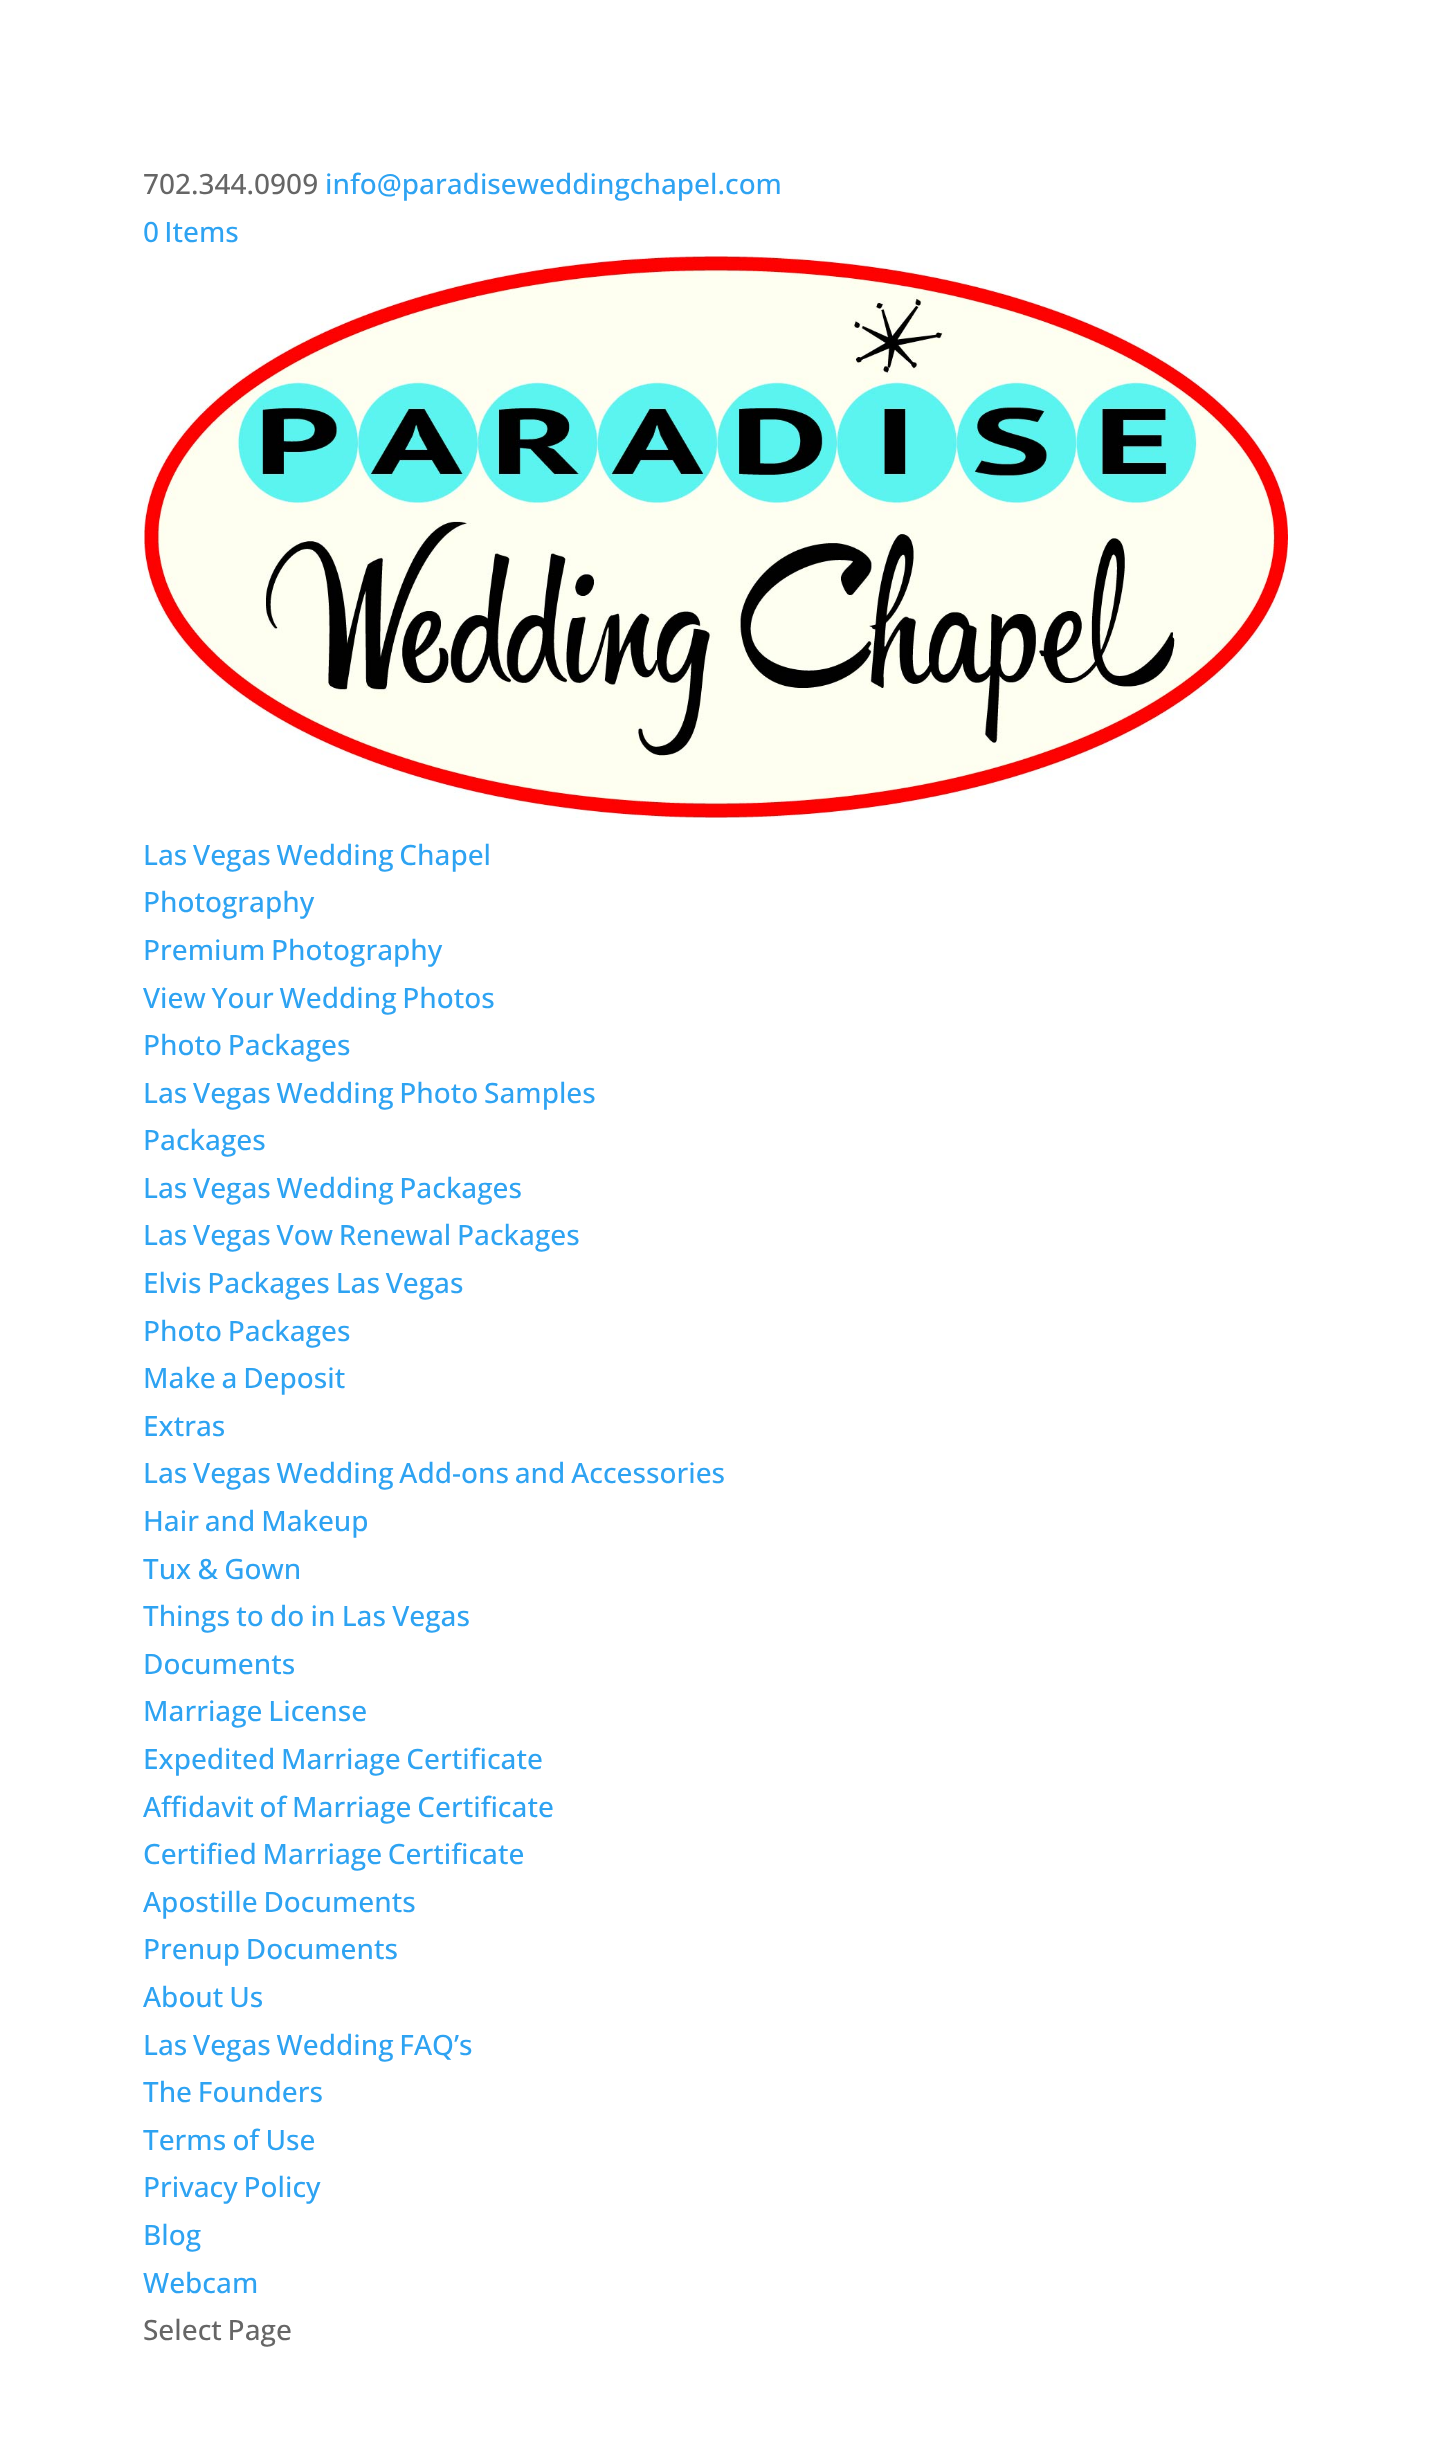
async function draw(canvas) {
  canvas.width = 1429
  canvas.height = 2456
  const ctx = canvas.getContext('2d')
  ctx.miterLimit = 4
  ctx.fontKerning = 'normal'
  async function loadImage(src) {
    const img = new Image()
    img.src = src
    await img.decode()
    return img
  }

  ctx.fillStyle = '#fff'
  ctx.fillRect(0, 0, 1429, 2456)
  ctx.font = '500 28px Open Sans'
  ctx.fillStyle = '#666'
  ctx.fillText('702.344.0909', 143, 194)
  ctx.fillStyle = '#2ea3f2'
  ctx.fillText('info@paradiseweddingchapel.com', 325, 194)
  ctx.wordSpacing = '-2px'
  ctx.fillText('0 Items', 143, 242)
  ctx.drawImage(await loadImage('image0.png'), 144, 256, 1144, 562)
  ctx.wordSpacing = '-1.5px'
  ctx.fillText('Las Vegas Wedding Chapel', 143, 865)
  ctx.wordSpacing = '0px'
  ctx.fillText('Photography', 143, 912)
  ctx.wordSpacing = '-1.5px'
  ctx.fillText('Premium Photography', 143, 960)
  ctx.fillText('View Your Wedding Photos', 143, 1008)
  ctx.fillText('Photo Packages', 143, 1055)
  ctx.fillText('Las Vegas Wedding Photo Samples', 143, 1103)
  ctx.wordSpacing = '0px'
  ctx.fillText('Packages', 143, 1150)
  ctx.wordSpacing = '-1.5px'
  ctx.fillText('Las Vegas Wedding Packages', 143, 1198)
  ctx.fillText('Las Vegas Vow Renewal Packages', 143, 1245)
  ctx.fillText('Elvis Packages Las Vegas', 143, 1293)
  ctx.fillText('Photo Packages', 143, 1341)
  ctx.fillText('Make a Deposit', 143, 1388)
  ctx.wordSpacing = '0px'
  ctx.fillText('Extras', 143, 1436)
  ctx.wordSpacing = '-1.5px'
  ctx.fillText('Las Vegas Wedding Add-ons and Accessories', 143, 1483)
  ctx.fillText('Hair and Makeup', 143, 1531)
  ctx.wordSpacing = '-1px'
  ctx.fillText('Tux & Gown', 143, 1579)
  ctx.fillText('Things to do in Las Vegas', 143, 1626)
  ctx.wordSpacing = '0px'
  ctx.fillText('Documents', 143, 1674)
  ctx.wordSpacing = '-1.5px'
  ctx.fillText('Marriage License', 143, 1721)
  ctx.fillText('Expedited Marriage Certificate', 143, 1769)
  ctx.fillText('Affidavit of Marriage Certificate', 143, 1817)
  ctx.fillText('Certified Marriage Certificate', 143, 1864)
  ctx.fillText('Apostille Documents', 143, 1912)
  ctx.fillText('Prenup Documents', 143, 1959)
  ctx.fillText('About Us', 143, 2007)
  ctx.fillText('Las Vegas Wedding FAQ’s', 143, 2055)
  ctx.fillText('The Founders', 143, 2102)
  ctx.wordSpacing = '-1px'
  ctx.fillText('Terms of Use', 143, 2150)
  ctx.wordSpacing = '-1.5px'
  ctx.fillText('Privacy Policy', 143, 2197)
  ctx.wordSpacing = '0px'
  ctx.fillText('Blog', 143, 2245)
  ctx.fillText('Webcam', 143, 2293)
  ctx.wordSpacing = '-1.5px'
  ctx.fillStyle = '#666'
  ctx.fillText('Select Page', 143, 2340)
}

draw(document.querySelector('canvas'))
